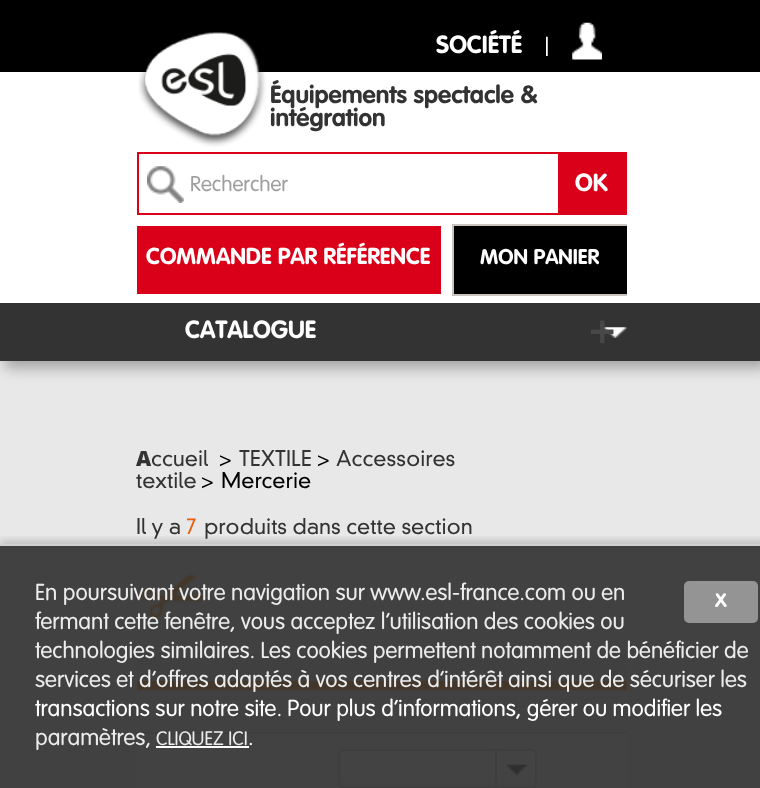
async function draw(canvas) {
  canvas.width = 760
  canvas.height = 788
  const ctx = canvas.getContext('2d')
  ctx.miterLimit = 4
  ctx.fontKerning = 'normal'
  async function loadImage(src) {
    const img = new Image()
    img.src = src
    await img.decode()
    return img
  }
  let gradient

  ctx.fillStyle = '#e8e8e8'
  ctx.fillRect(0, 0, 760, 788)
  ctx.fillStyle = '#0000004d'
  ctx.filter = 'blur(7px)'
  ctx.beginPath()
  ctx.rect(5, 7, 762, 361)
  ctx.fill()
  ctx.filter = 'none'
  ctx.fillStyle = '#fff'
  ctx.fillRect(0, 72, 760, 231)
  ctx.fillStyle = '#000'
  ctx.fillRect(0, 0, 760, 72)
  ctx.drawImage(await loadImage('image0.png'), 546, 36, 2, 20)
  ctx.font = 'bold 24.5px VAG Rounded'
  ctx.fillStyle = '#fff'
  ctx.fillText('SOCIÉTÉ', 436, 53)
  ctx.drawImage(await loadImage('image1.png'), 572, 22, 30, 38)
  ctx.drawImage(await loadImage('image2.png'), 138, 32, 128, 115)
  ctx.fillStyle = '#333'
  ctx.fillText('Équipements spectacle &', 270, 103)
  ctx.fillText('intégration', 270, 126)
  ctx.drawImage(await loadImage('image3.png'), 147, 166, 37, 37)
  ctx.strokeStyle = '#da0019'
  ctx.lineWidth = 2
  ctx.strokeRect(138, 153, 488, 61)
  ctx.font = '21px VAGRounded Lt'
  ctx.fillStyle = '#9f9f9f'
  ctx.fillText('Rechercher', 190, 191)
  ctx.fillStyle = '#da0019'
  ctx.fillRect(558, 154, 67, 59)
  ctx.font = 'bold 24.5px VAG Rounded'
  ctx.fillStyle = '#fff'
  ctx.fillText('OK', 575, 191)
  ctx.fillStyle = '#da0019'
  ctx.fillRect(137, 226, 304, 68)
  ctx.font = 'bold 22.75px VAG Rounded'
  ctx.fillStyle = '#fff'
  ctx.fillText('COMMANDE PAR RÉFÉRENCE', 146, 264)
  ctx.fillStyle = '#000'
  ctx.fillRect(454, 226, 173, 68)
  ctx.fillStyle = '#cbc3be'
  ctx.fillRect(452, 224, 175, 2)
  ctx.fillRect(452, 294, 175, 2)
  ctx.fillRect(452, 224, 2, 72)
  ctx.font = 'bold 21px VAG Rounded'
  ctx.fillStyle = '#fff'
  ctx.fillText('MON PANIER', 480, 264)
  ctx.fillStyle = '#333'
  ctx.fillRect(0, 303, 760, 58)
  ctx.font = 'bold 24.5px VAG Rounded'
  ctx.fillStyle = '#fff'
  ctx.fillText('CATALOGUE', 185, 338)
  ctx.drawImage(await loadImage('image4.png'), 603, 327, 24, 11)
  ctx.font = 'bold 42px "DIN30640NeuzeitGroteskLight"'
  ctx.fillStyle = '#484848'
  ctx.fillText('+', 589, 343)
  ctx.font = '900 21px Noto Sans'
  ctx.fillStyle = '#333'
  ctx.fillText('A', 136, 466)
  ctx.font = '300 21px "DIN30640NeuzeitGroteskLight"'
  ctx.fillText('ccueil', 151, 466)
  ctx.fillStyle = '#000'
  ctx.fillText('>', 219, 466)
  ctx.fillStyle = '#333'
  ctx.fillText('TEXTILE', 239, 466)
  ctx.fillStyle = '#000'
  ctx.fillText('>', 317, 466)
  ctx.fillStyle = '#333'
  ctx.fillText('Accessoires', 336, 466)
  ctx.fillText('textile', 136, 488)
  ctx.fillStyle = '#000'
  ctx.fillText('>', 201, 488)
  ctx.fillText('Mercerie', 221, 488)
  ctx.fillStyle = '#333'
  ctx.fillText('Il y a', 136, 534)
  ctx.fillStyle = '#e95e0f'
  ctx.fillText('7', 186, 534)
  ctx.fillStyle = '#333'
  ctx.fillText('produits dans cette section', 204, 534)
  ctx.drawImage(await loadImage('image5.png'), 139, 573, 68, 46)
  ctx.fillStyle = '#dedede'
  ctx.fillRect(137, 653, 490, 28)
  ctx.fillStyle = '#f18700'
  ctx.fillRect(137, 681, 490, 9)
  ctx.fillStyle = '#eee'
  ctx.fillRect(137, 734, 490, 54)
  ctx.fillStyle = '#ccc'
  ctx.fillRect(137, 732, 490, 2)
  ctx.save()
  ctx.beginPath()
  ctx.roundRect(338, 749, 199, 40, 5)
  ctx.clip()
  gradient = ctx.createLinearGradient(438, 788, 438, 751)
  gradient.addColorStop(0, '#eee')
  gradient.addColorStop(0.3, '#fff')
  ctx.fillStyle = gradient
  ctx.fillRect(338, 751, 199, 37)
  ctx.restore()
  ctx.beginPath()
  ctx.roundRect(339, 750, 197, 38, 4)
  ctx.strokeStyle = '#ccc'
  ctx.stroke()
  ctx.drawImage(await loadImage('image6.png'), 505, 763, 22, 13)
  ctx.fillRect(495, 751, 2, 37)
  ctx.save()
  ctx.beginPath()
  ctx.rect(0, 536, 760, 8)
  ctx.clip()
  ctx.fillStyle = '#0000002e'
  ctx.filter = 'blur(4.5px)'
  ctx.beginPath()
  ctx.rect(0, 541, 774, 245)
  ctx.fill()
  ctx.filter = 'none'
  ctx.restore()
  ctx.fillStyle = '#2f2f2fe6'
  ctx.fillRect(0, 546, 760, 242)
  ctx.fillStyle = '#d1d1d1'
  ctx.fillRect(0, 544, 760, 2)
  ctx.font = '22.75px VAGRounded Lt'
  ctx.fillStyle = '#ececec'
  ctx.fillText('En poursuivant votre navigation sur www.esl-france.com ou en', 35, 600)
  ctx.fillText('fermant cette fenêtre, vous acceptez l’utilisation des cookies ou', 35, 629)
  ctx.fillText('technologies similaires. Les cookies permettent notamment de bénéficier de', 35, 658)
  ctx.fillText('services et d\'offres adaptés à vos centres d\'intérêt ainsi que de sécuriser les', 35, 687)
  ctx.fillStyle = '#fff'
  ctx.fillText('transactions sur notre site. Pour plus d\'informations, gérer ou modifier les', 35, 716)
  ctx.fillStyle = '#ececec'
  ctx.fillText('paramètres,', 35, 745)
  ctx.font = '19.25px VAGRounded Lt'
  ctx.fillText('CLIQUEZ ICI', 156, 745)
  ctx.fillStyle = '#fdfdfd'
  ctx.fillRect(156, 746, 93, 2)
  ctx.font = '22.75px VAGRounded Lt'
  ctx.fillStyle = '#fff'
  ctx.fillText('.', 248, 745)
  ctx.fillStyle = '#949494'
  ctx.beginPath()
  ctx.roundRect(684, 581, 74, 42, 5)
  ctx.fill()
  ctx.font = 'bold 19.25px VAG Rounded'
  ctx.fillStyle = '#fff'
  ctx.fillText('X', 715, 607)
}

draw(document.querySelector('canvas'))
